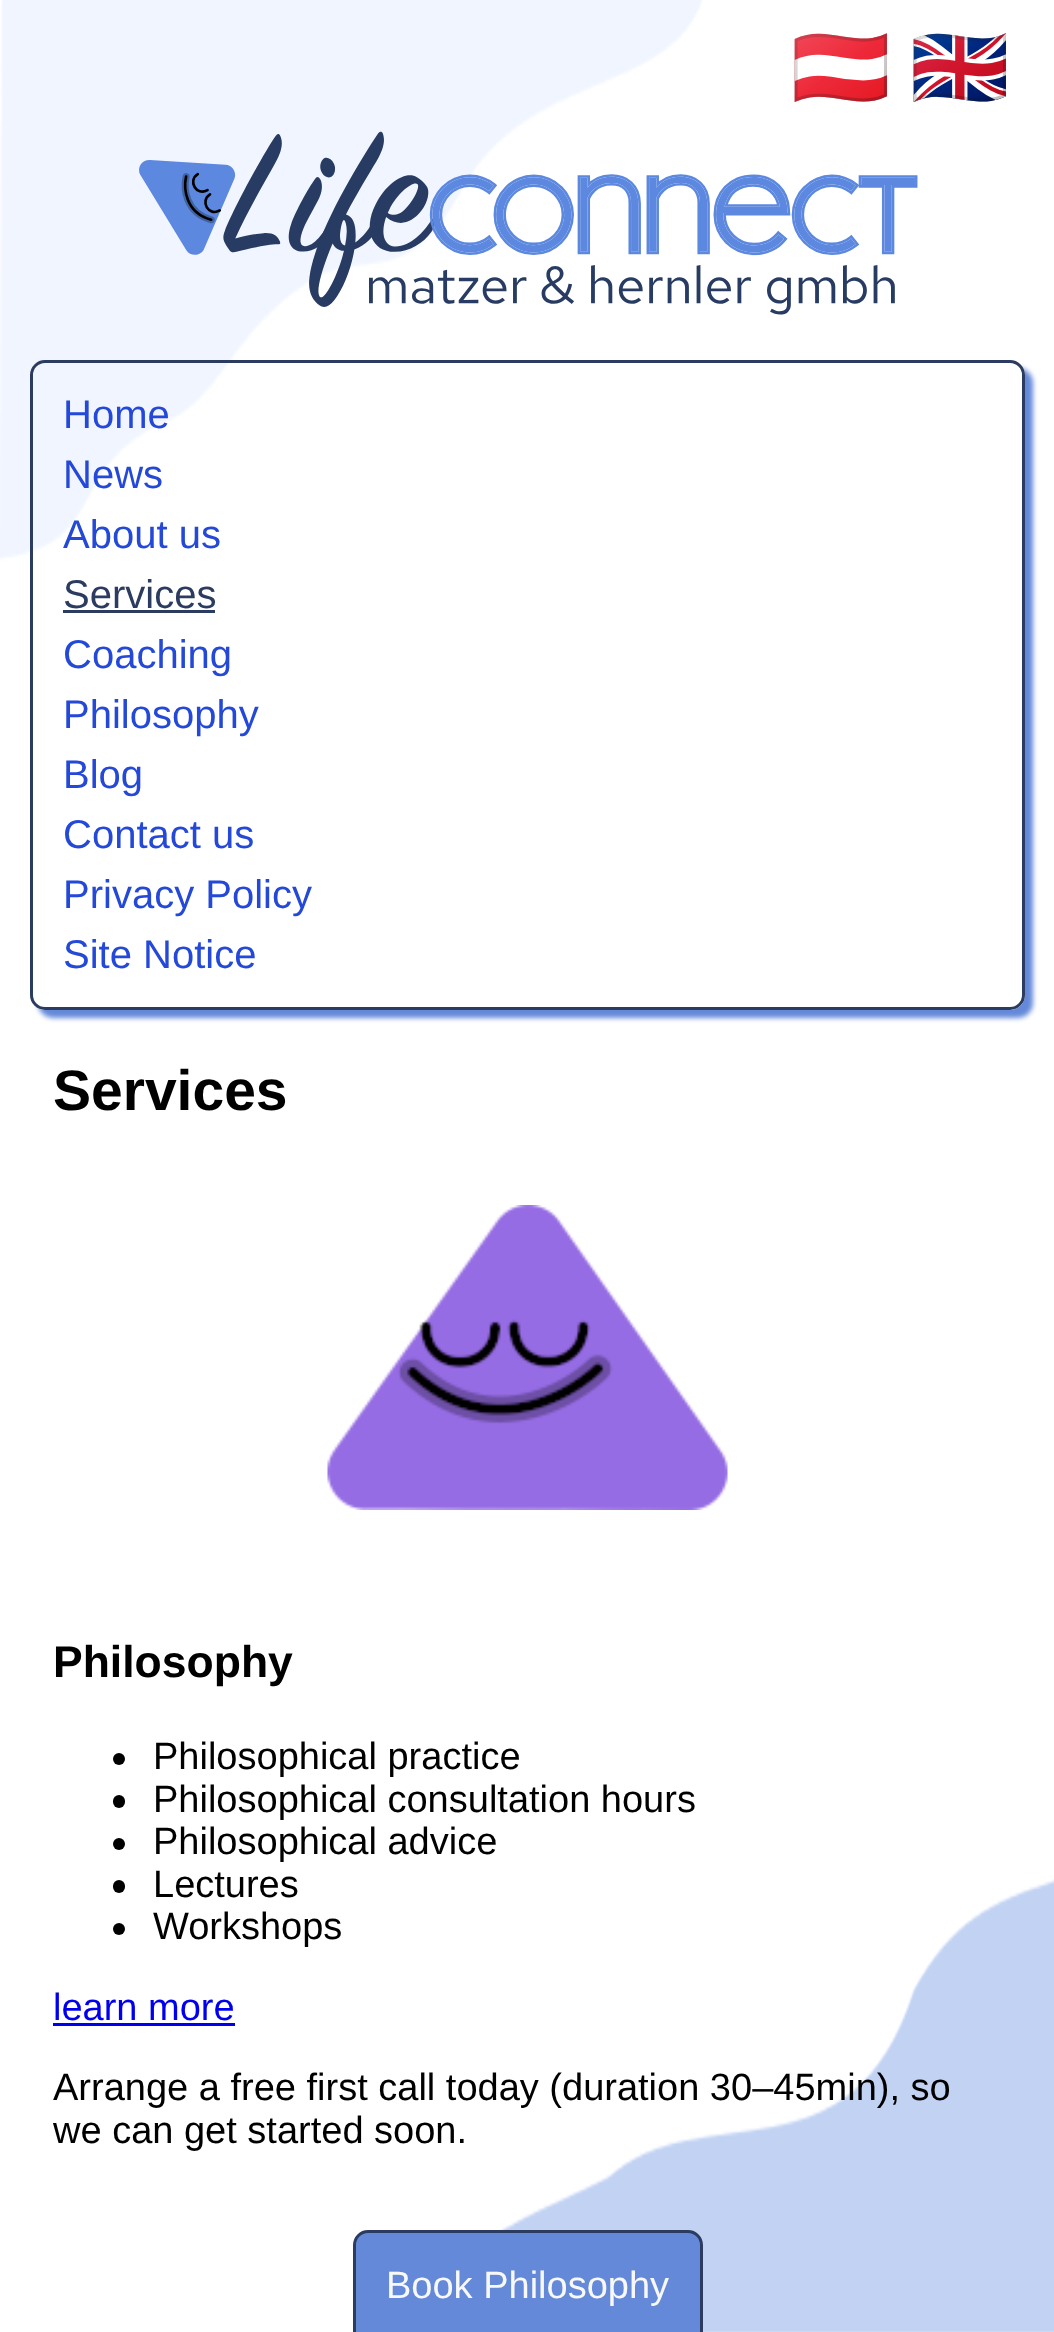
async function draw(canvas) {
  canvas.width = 1054
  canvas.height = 2332
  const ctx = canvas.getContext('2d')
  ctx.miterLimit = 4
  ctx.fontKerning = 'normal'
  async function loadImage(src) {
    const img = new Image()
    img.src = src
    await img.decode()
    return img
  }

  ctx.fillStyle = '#fff'
  ctx.fillRect(0, 0, 1054, 2332)
  ctx.drawImage(await loadImage('image0.png'), 0, 0, 1054, 2332)
  ctx.font = '80px Noto Color Emoji'
  ctx.fillStyle = '#00e'
  ctx.fillText('🇦🇹', 791, 95)
  ctx.fillText('🇬🇧', 910, 95)
  ctx.drawImage(await loadImage('image1.png'), 139, 131, 779, 184)
  ctx.save()
  ctx.beginPath()
  ctx.moveTo(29, 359)
  ctx.lineTo(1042, 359)
  ctx.lineTo(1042, 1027)
  ctx.lineTo(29, 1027)
  ctx.closePath()
  ctx.moveTo(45, 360)
  ctx.lineTo(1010, 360)
  ctx.bezierCurveTo(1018.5, 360, 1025, 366.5, 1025, 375)
  ctx.lineTo(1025, 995)
  ctx.bezierCurveTo(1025, 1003.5, 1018.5, 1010, 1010, 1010)
  ctx.lineTo(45, 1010)
  ctx.bezierCurveTo(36.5, 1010, 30, 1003.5, 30, 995)
  ctx.lineTo(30, 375)
  ctx.bezierCurveTo(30, 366.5, 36.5, 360, 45, 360)
  ctx.closePath()
  ctx.clip('evenodd')
  ctx.fillStyle = '#6489d9'
  ctx.filter = 'blur(2.5px)'
  ctx.beginPath()
  ctx.roundRect(38, 368, 995, 650, 15)
  ctx.fill()
  ctx.filter = 'none'
  ctx.restore()
  ctx.beginPath()
  ctx.roundRect(31.5, 361.5, 992, 647, 13.5)
  ctx.strokeStyle = '#2b3c60'
  ctx.lineWidth = 3
  ctx.stroke()
  ctx.font = '40px Liberation Sans'
  ctx.fillStyle = '#2449d9'
  ctx.fillText('Home', 63, 428)
  ctx.fillText('News', 63, 488)
  ctx.fillText('About us', 63, 548)
  ctx.fillStyle = '#2b3c60'
  ctx.fillText('Services', 63, 608)
  ctx.fillRect(63, 610, 152, 3)
  ctx.fillStyle = '#2449d9'
  ctx.fillText('Coaching', 63, 668)
  ctx.fillText('Philosophy', 63, 728)
  ctx.fillText('Blog', 63, 788)
  ctx.fillText('Contact us', 63, 848)
  ctx.fillText('Privacy Policy', 63, 908)
  ctx.fillText('Site Notice', 63, 968)
  ctx.font = 'bold 57px Liberation Sans'
  ctx.fillStyle = '#000'
  ctx.fillText('Services', 53, 1110)
  ctx.drawImage(await loadImage('image2.png'), 327, 1205, 401, 305)
  ctx.font = 'bold 44.5px Liberation Sans'
  ctx.fillText('Philosophy', 53, 1677)
  ctx.beginPath()
  ctx.arc(119, 1759, 6, 0, 2 * Math.PI)
  ctx.fill()
  ctx.font = '38px Liberation Sans'
  ctx.fillText('Philosophical practice', 153, 1769)
  ctx.beginPath()
  ctx.roundRect(113, 1795, 12, 13, 6)
  ctx.fill()
  ctx.fillText('Philosophical consultation hours', 153, 1812)
  ctx.beginPath()
  ctx.arc(119, 1844, 6, 0, 2 * Math.PI)
  ctx.fill()
  ctx.fillText('Philosophical advice', 153, 1854)
  ctx.beginPath()
  ctx.roundRect(113, 1880, 12, 13, 6)
  ctx.fill()
  ctx.fillText('Lectures', 153, 1897)
  ctx.beginPath()
  ctx.arc(119, 1929, 6, 0, 2 * Math.PI)
  ctx.fill()
  ctx.fillText('Workshops', 153, 1939)
  ctx.fillStyle = '#00e'
  ctx.fillText('learn more', 53, 2020)
  ctx.fillRect(53, 2023, 182, 3)
  ctx.fillStyle = '#000'
  ctx.fillText('Arrange a free first call today (duration 30–45min), so', 53, 2100)
  ctx.fillText('we can get started soon.', 53, 2143)
  ctx.fillStyle = '#6489d9'
  ctx.beginPath()
  ctx.roundRect(354.5, 2231.5, 347, 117, 13.5)
  ctx.fill()
  ctx.stroke()
  ctx.fillStyle = '#f8f8f8'
  ctx.fillText('Book Philosophy', 386, 2298)
}

draw(document.querySelector('canvas'))
